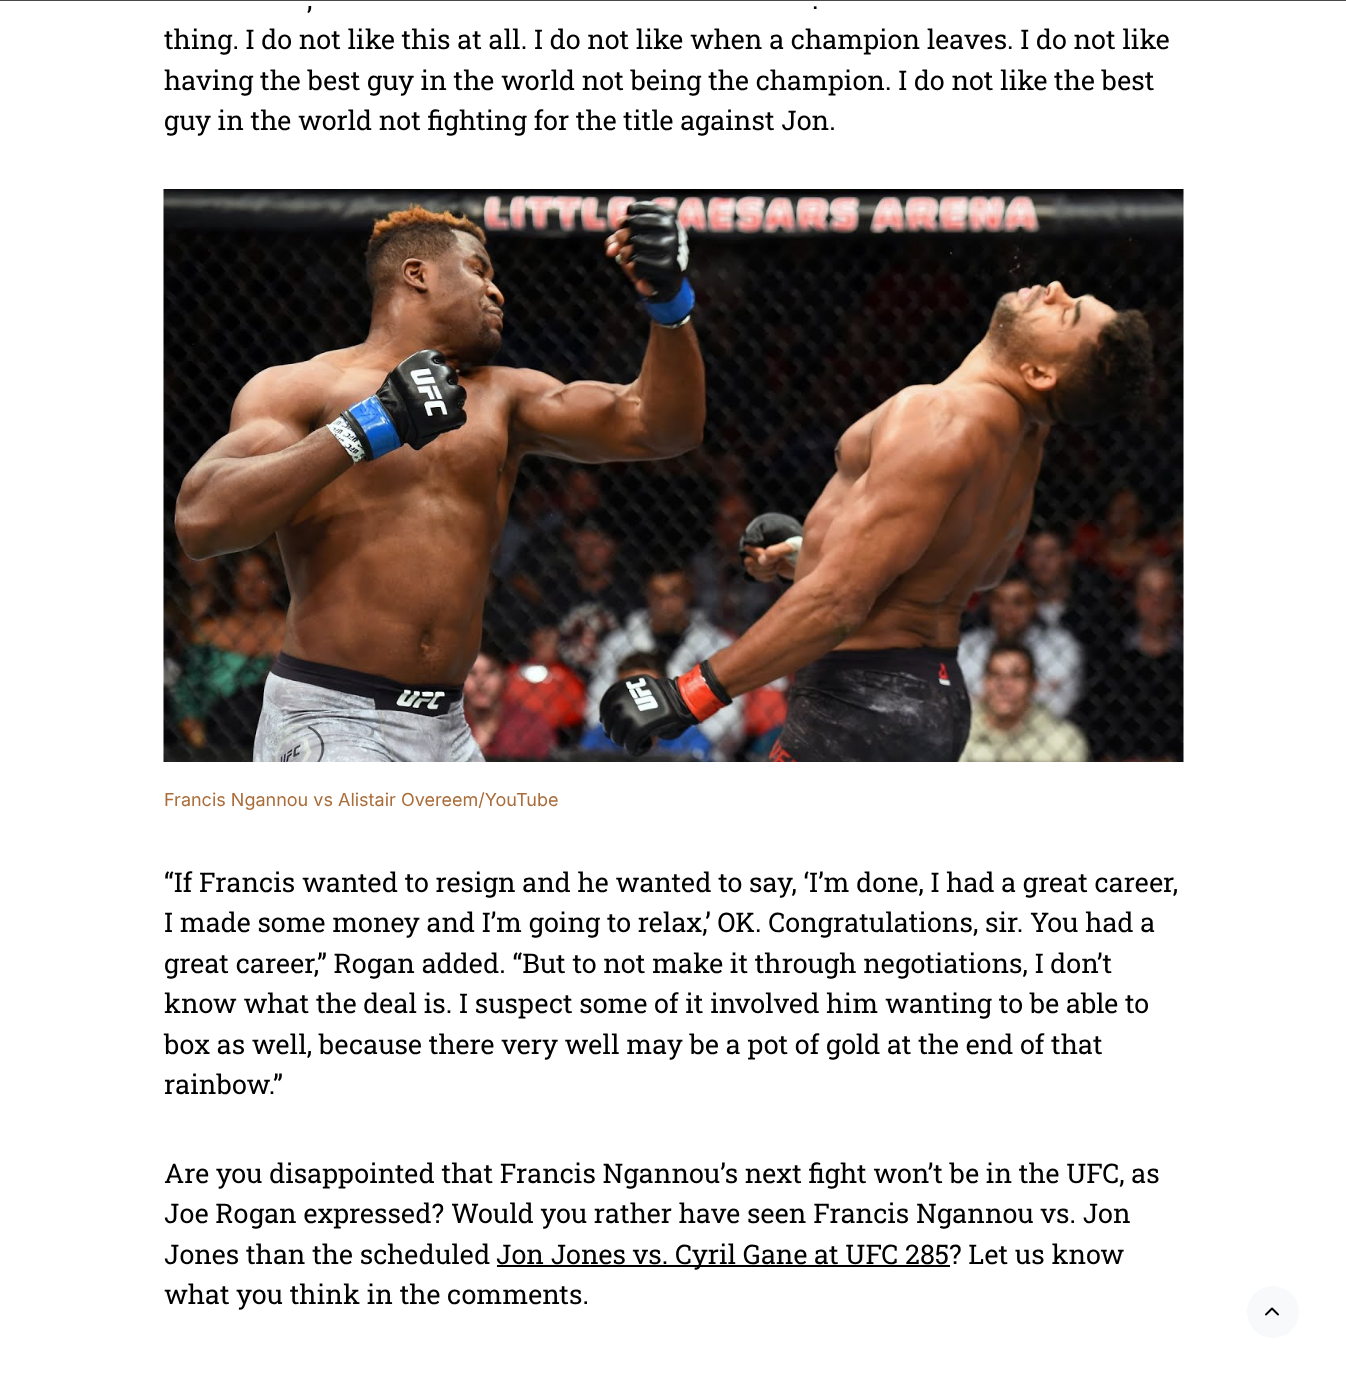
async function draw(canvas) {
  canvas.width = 1346
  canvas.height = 1385
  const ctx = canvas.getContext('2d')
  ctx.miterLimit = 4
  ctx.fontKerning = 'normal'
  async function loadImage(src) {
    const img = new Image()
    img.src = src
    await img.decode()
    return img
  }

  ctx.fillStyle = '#fff'
  ctx.fillRect(0, 0, 1346, 1385)
  ctx.fillStyle = '#494949'
  ctx.fillRect(0, 0, 1346, 1)
  ctx.font = '27px Roboto Slab'
  ctx.fillStyle = '#000'
  ctx.fillText(',', 307, 9)
  ctx.fillText('.', 812, 9)
  ctx.fillText('thing. I do not like this at all. I do not like when a champion leaves. I do not like', 164, 49)
  ctx.fillText('having the best guy in the world not being the champion. I do not like the best', 164, 90)
  ctx.fillText('guy in the world not fighting for the title against Jon.', 164, 130)
  ctx.drawImage(await loadImage('image0.png'), 163, 189, 1021, 573)
  ctx.font = '18px Inter'
  ctx.fillStyle = '#aa6c39'
  ctx.fillText('Francis Ngannou vs Alistair Overeem/YouTube', 164, 806)
  ctx.font = '27px Roboto Slab'
  ctx.fillStyle = '#000'
  ctx.fillText('“If Francis wanted to resign and he wanted to say, ‘I’m done, I had a great career,', 164, 892)
  ctx.fillText('I made some money and I’m going to relax,’ OK. Congratulations, sir. You had a', 164, 932)
  ctx.fillText('great career,” Rogan added. “But to not make it through negotiations, I don’t', 164, 973)
  ctx.fillText('know what the deal is. I suspect some of it involved him wanting to be able to', 164, 1013)
  ctx.fillText('box as well, because there very well may be a pot of gold at the end of that', 164, 1054)
  ctx.fillText('rainbow.”', 164, 1094)
  ctx.fillText('Are you disappointed that Francis Ngannou’s next fight won’t be in the UFC, as', 164, 1183)
  ctx.fillText('Joe Rogan expressed? Would you rather have seen Francis Ngannou vs. Jon', 164, 1223)
  ctx.fillText('Jones than the scheduled', 164, 1264)
  ctx.fillRect(497, 1265, 453, 2)
  ctx.fillText('Jon Jones vs. Cyril Gane at UFC 285? Let us know', 496, 1264)
  ctx.fillText('what you think in the comments.', 164, 1304)
  ctx.fillStyle = '#f8f9fa'
  ctx.beginPath()
  ctx.arc(1273, 1312, 26, 0, 2 * Math.PI)
  ctx.fill()
  ctx.drawImage(await loadImage('image1.png'), 1265, 1307, 14, 9)
}

draw(document.querySelector('canvas'))
